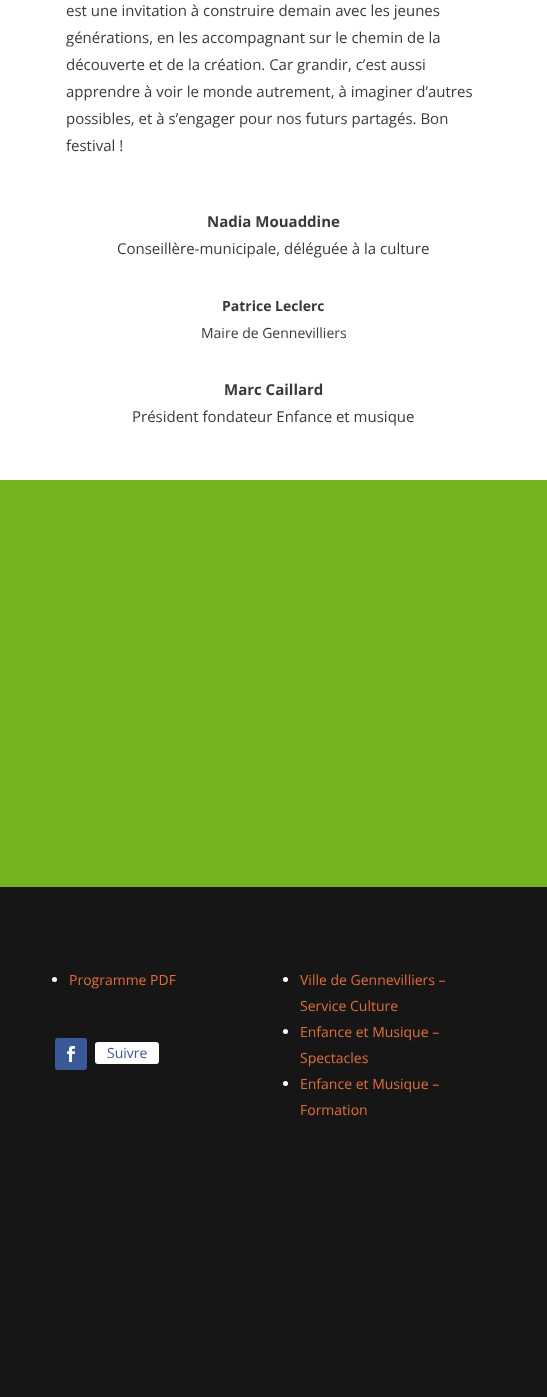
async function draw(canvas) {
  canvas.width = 547
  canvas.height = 1397
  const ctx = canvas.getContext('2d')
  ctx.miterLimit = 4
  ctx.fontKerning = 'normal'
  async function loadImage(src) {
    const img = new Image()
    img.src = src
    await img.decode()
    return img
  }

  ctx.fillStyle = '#fff'
  ctx.fillRect(0, 0, 547, 1397)
  ctx.font = '15px Open Sans'
  ctx.fillStyle = '#3a3a3a'
  ctx.fillText('est une invitation à construire demain avec les jeunes', 66, 16)
  ctx.fillText('générations, en les accompagnant sur le chemin de la', 66, 43)
  ctx.fillText('découverte et de la création. Car grandir, c’est aussi', 66, 70)
  ctx.fillText('apprendre à voir le monde autrement, à imaginer d’autres', 66, 97)
  ctx.fillText('possibles, et à s’engager pour nos futurs partagés. Bon', 66, 124)
  ctx.fillText('festival !', 66, 151)
  ctx.font = 'bold 15px Open Sans'
  ctx.fillText('Nadia Mouaddine', 207, 227)
  ctx.font = '15px Open Sans'
  ctx.fillText('Conseillère-municipale, déléguée à la culture', 117, 254)
  ctx.font = 'bold 14px Open Sans'
  ctx.fillText('Patrice Leclerc', 222, 311)
  ctx.font = '14px Open Sans'
  ctx.fillText('Maire de Gennevilliers', 201, 338)
  ctx.font = 'bold 15px Open Sans'
  ctx.fillText('Marc Caillard', 224, 395)
  ctx.font = '15px Open Sans'
  ctx.fillText('Président fondateur Enfance et musique', 132, 422)
  ctx.fillStyle = '#74b320'
  ctx.fillRect(0, 480, 547, 407)
  ctx.fillStyle = '#161616'
  ctx.fillRect(0, 887, 547, 510)
  ctx.fillStyle = '#fff'
  ctx.beginPath()
  ctx.arc(54.5, 979.5, 2.5, 0, 2 * Math.PI)
  ctx.fill()
  ctx.font = '14px Open Sans'
  ctx.fillStyle = '#e26d38'
  ctx.fillText('Programme PDF', 69, 985)
  ctx.fillStyle = '#3b5998'
  ctx.beginPath()
  ctx.roundRect(55, 1038, 32, 32, 3)
  ctx.fill()
  ctx.drawImage(await loadImage('image0.png'), 67, 1046, 8, 16)
  ctx.fillStyle = '#fff'
  ctx.beginPath()
  ctx.roundRect(95, 1042, 64, 22, 3)
  ctx.fill()
  ctx.fillStyle = '#3b5998'
  ctx.fillText('Suivre', 107, 1058)
  ctx.fillStyle = '#fff'
  ctx.beginPath()
  ctx.arc(285.5, 979.5, 2.5, 0, 2 * Math.PI)
  ctx.fill()
  ctx.fillStyle = '#e26d38'
  ctx.fillText('Ville de Gennevilliers –', 300, 985)
  ctx.fillText('Service Culture', 300, 1011)
  ctx.fillStyle = '#fff'
  ctx.beginPath()
  ctx.arc(285.5, 1031.5, 2.5, 0, 2 * Math.PI)
  ctx.fill()
  ctx.fillStyle = '#e26d38'
  ctx.fillText('Enfance et Musique –', 300, 1037)
  ctx.fillText('Spectacles', 300, 1063)
  ctx.fillStyle = '#fff'
  ctx.beginPath()
  ctx.arc(285.5, 1083.5, 2.5, 0, 2 * Math.PI)
  ctx.fill()
  ctx.fillStyle = '#e26d38'
  ctx.fillText('Enfance et Musique –', 300, 1089)
  ctx.fillText('Formation', 300, 1115)
}

draw(document.querySelector('canvas'))
